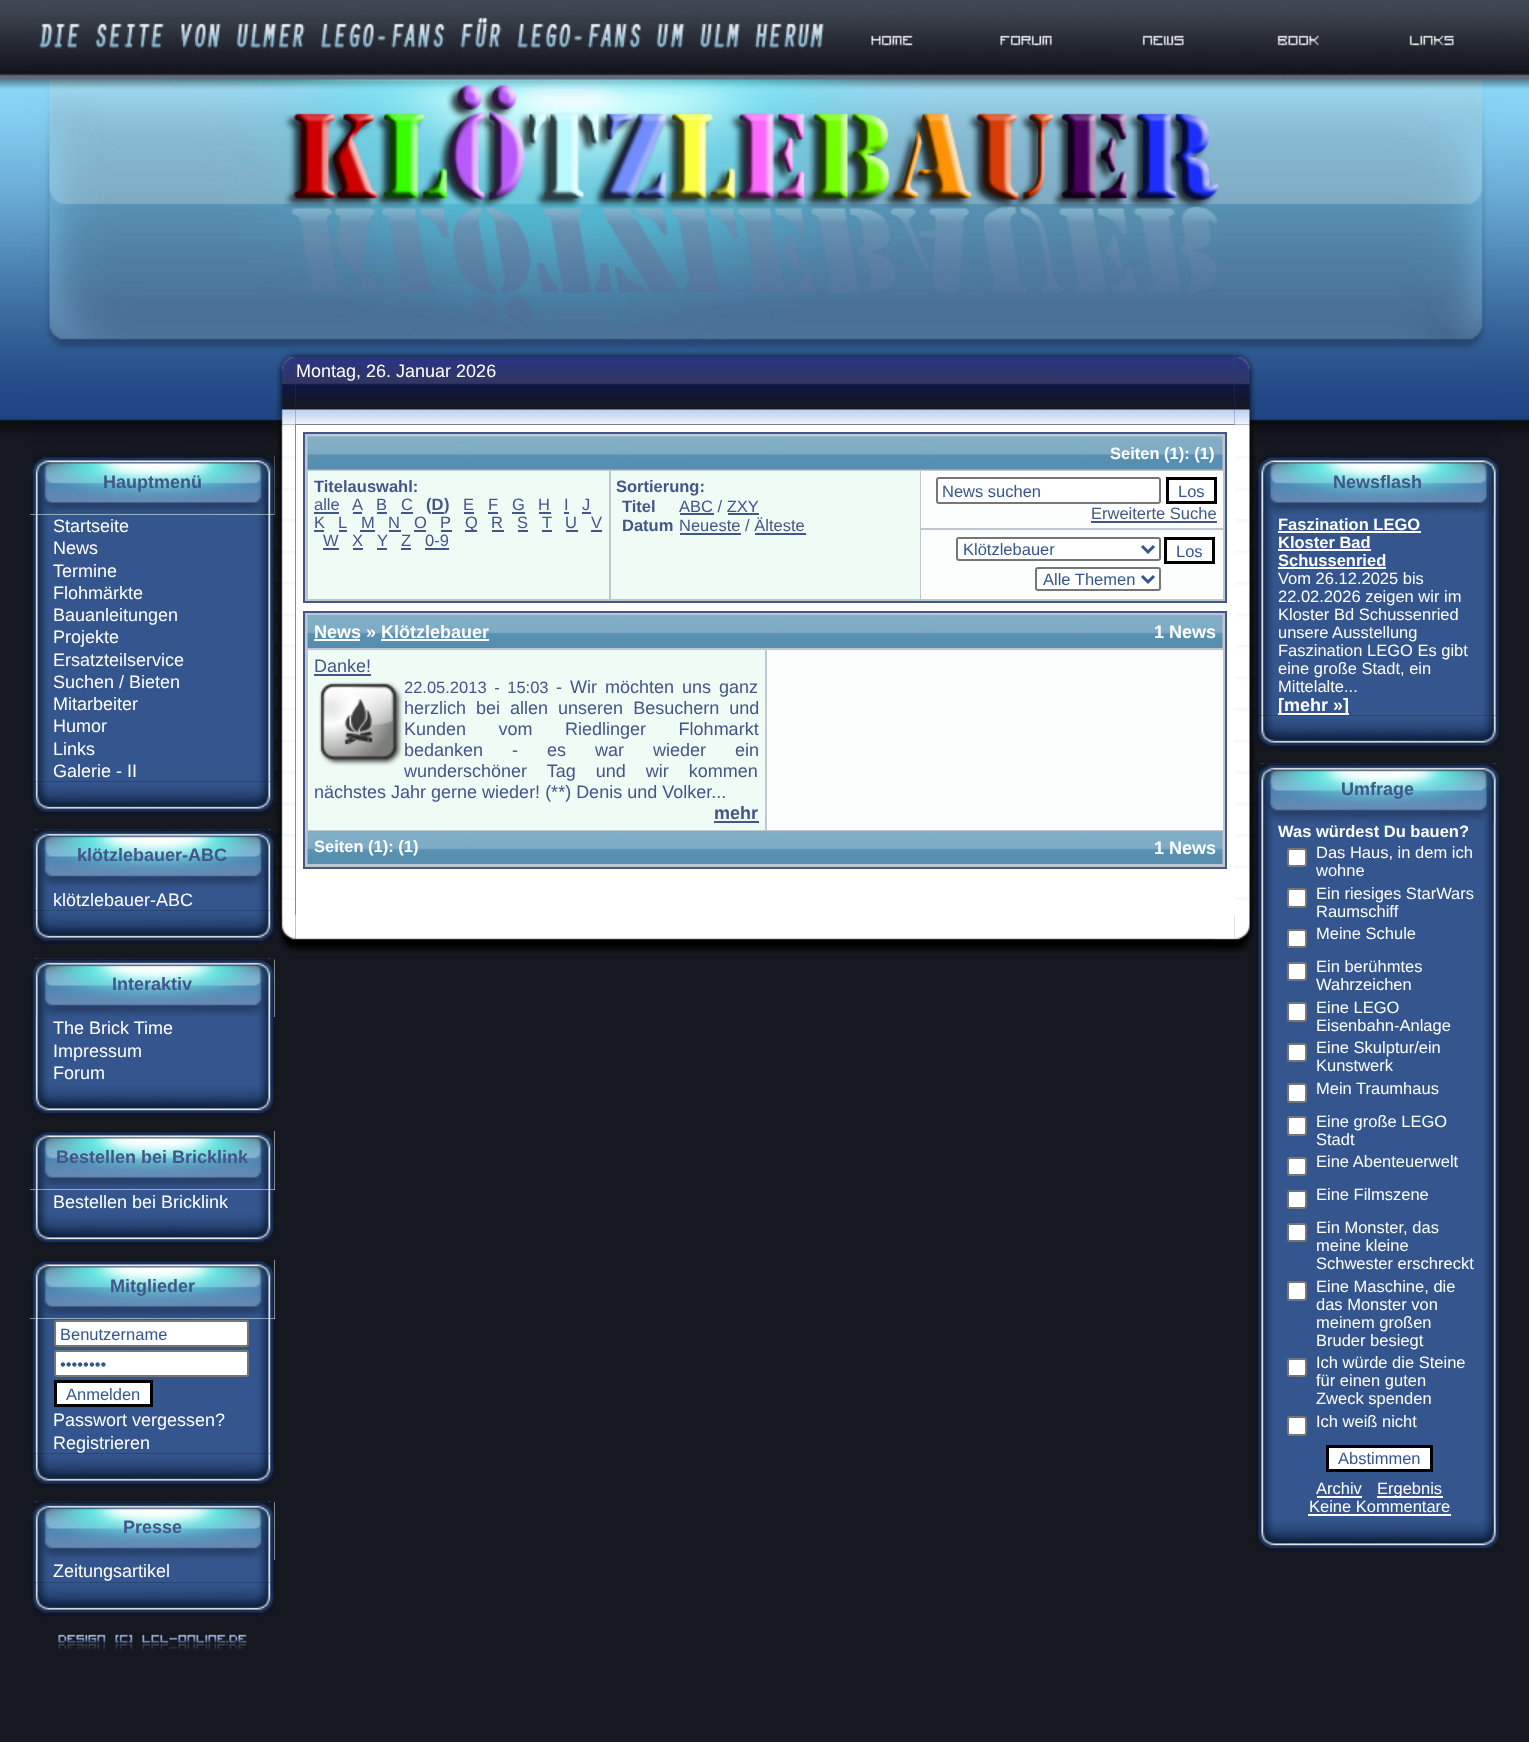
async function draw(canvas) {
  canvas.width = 1529
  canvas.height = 1742
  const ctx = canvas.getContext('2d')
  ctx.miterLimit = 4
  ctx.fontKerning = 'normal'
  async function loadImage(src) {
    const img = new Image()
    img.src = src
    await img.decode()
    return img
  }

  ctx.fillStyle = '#161820'
  ctx.fillRect(0, 0, 1529, 1742)
  ctx.drawImage(await loadImage('image0.png'), 0, 0, 1529, 435)
  ctx.drawImage(await loadImage('image1.png'), 30, 17, 802, 63)
  ctx.drawImage(await loadImage('image2.png'), 832, 35, 131, 45)
  ctx.fillStyle = '#5f6d7c'
  ctx.fillRect(913, 79, 3, 1)
  ctx.drawImage(await loadImage('image3.png'), 963, 35, 135, 45)
  ctx.fillStyle = '#606d7e'
  ctx.fillRect(971, 79, 78, 1)
  ctx.drawImage(await loadImage('image4.png'), 1098, 35, 135, 45)
  ctx.drawImage(await loadImage('image5.png'), 1233, 35, 135, 45)
  ctx.fillRect(1258, 79, 39, 1)
  ctx.drawImage(await loadImage('image6.png'), 1368, 35, 132, 45)
  ctx.drawImage(await loadImage('image21.png'), 295, 350, 940, 75)
  ctx.drawImage(await loadImage('image9.png'), 30, 515, 245, 267)
  ctx.fillStyle = '#fff'
  ctx.fillRect(30, 456, 245, 59)
  ctx.drawImage(await loadImage('image10.png'), 30, 456, 245, 59)
  ctx.drawImage(await loadImage('image11.png'), 30, 781, 245, 35)
  ctx.drawImage(await loadImage('image12.png'), 30, 829, 245, 82)
  ctx.drawImage(await loadImage('image13.png'), 30, 829, 245, 59)
  ctx.drawImage(await loadImage('image11.png'), 30, 910, 245, 35)
  ctx.drawImage(await loadImage('image23.png'), 274, 424, 22, 491)
  ctx.drawImage(await loadImage('image20.png'), 275, 349, 21, 76)
  ctx.drawImage(await loadImage('image7.png'), 30, 79, 1470, 271)
  ctx.drawImage(await loadImage('image8.png'), 30, 350, 244, 106)
  ctx.font = 'bold 18px Liberation Sans'
  ctx.fillStyle = '#458'
  ctx.fillText('Hauptmenü', 103, 488)
  ctx.font = '18px Liberation Sans'
  ctx.fillStyle = '#fff'
  ctx.fillText('Startseite', 53, 532)
  ctx.fillText('News', 53, 554)
  ctx.fillText('Termine', 53, 577)
  ctx.fillText('Flohmärkte', 53, 599)
  ctx.fillText('Bauanleitungen', 53, 621)
  ctx.fillText('Projekte', 53, 643)
  ctx.fillText('Ersatzteilservice', 53, 666)
  ctx.fillText('Suchen / Bieten', 53, 688)
  ctx.fillText('Mitarbeiter', 53, 710)
  ctx.fillText('Humor', 53, 732)
  ctx.fillText('Links', 53, 755)
  ctx.fillText('Galerie - II', 53, 777)
  ctx.font = 'bold 18px Liberation Sans'
  ctx.fillStyle = '#458'
  ctx.fillText('klötzlebauer-ABC', 77, 861)
  ctx.font = '18px Liberation Sans'
  ctx.fillStyle = '#fff'
  ctx.fillText('klötzlebauer-ABC', 53, 906)
  ctx.drawImage(await loadImage('image14.png'), 30, 958, 245, 125)
  ctx.fillRect(274, 959, 1, 58)
  ctx.drawImage(await loadImage('image13.png'), 30, 958, 245, 59)
  ctx.font = 'bold 18px Liberation Sans'
  ctx.fillStyle = '#458'
  ctx.fillText('Interaktiv', 112, 990)
  ctx.font = '18px Liberation Sans'
  ctx.fillStyle = '#fff'
  ctx.fillText('The Brick Time', 53, 1034)
  ctx.fillText('Impressum', 53, 1057)
  ctx.fillText('Forum', 53, 1079)
  ctx.drawImage(await loadImage('image15.png'), 30, 1083, 245, 34)
  ctx.drawImage(await loadImage('image16.png'), 30, 1190, 245, 22)
  ctx.fillRect(30, 1131, 245, 59)
  ctx.drawImage(await loadImage('image10.png'), 30, 1131, 245, 59)
  ctx.font = 'bold 18px Liberation Sans'
  ctx.fillStyle = '#458'
  ctx.fillText('Bestellen bei Bricklink', 56, 1163)
  ctx.font = '18px Liberation Sans'
  ctx.fillStyle = '#fff'
  ctx.fillText('Bestellen bei Bricklink', 53, 1208)
  ctx.drawImage(await loadImage('image15.png'), 30, 1212, 245, 34)
  ctx.drawImage(await loadImage('image17.png'), 30, 1319, 245, 135)
  ctx.fillRect(30, 1260, 245, 59)
  ctx.drawImage(await loadImage('image10.png'), 30, 1260, 245, 59)
  ctx.font = 'bold 18px Liberation Sans'
  ctx.fillStyle = '#458'
  ctx.fillText('Mitglieder', 110, 1292)
  ctx.fillStyle = '#fff'
  ctx.beginPath()
  ctx.roundRect(55, 1321, 193, 25, 2)
  ctx.fill()
  ctx.strokeStyle = '#767676'
  ctx.lineWidth = 2
  ctx.stroke()
  ctx.font = '16.5px Liberation Sans'
  ctx.fillStyle = '#35558e'
  ctx.fillText('Benutzername', 60, 1340)
  ctx.fillStyle = '#fff'
  ctx.beginPath()
  ctx.roundRect(55, 1351, 193, 25, 2)
  ctx.fill()
  ctx.stroke()
  ctx.fillStyle = '#35558e'
  ctx.fillText('••••••••', 60, 1370)
  ctx.fillStyle = '#fff'
  ctx.beginPath()
  ctx.rect(55.5, 1381.5, 96, 24)
  ctx.fill()
  ctx.strokeStyle = '#000'
  ctx.lineWidth = 3
  ctx.stroke()
  ctx.fillStyle = '#35558e'
  ctx.fillText('Anmelden', 66, 1400)
  ctx.font = '18px Liberation Sans'
  ctx.fillStyle = '#fff'
  ctx.fillText('Passwort vergessen?', 53, 1426)
  ctx.fillText('Registrieren', 53, 1449)
  ctx.drawImage(await loadImage('image11.png'), 30, 1453, 245, 35)
  ctx.drawImage(await loadImage('image18.png'), 30, 1501, 245, 82)
  ctx.fillRect(274, 1502, 1, 58)
  ctx.drawImage(await loadImage('image13.png'), 30, 1501, 245, 59)
  ctx.font = 'bold 18px Liberation Sans'
  ctx.fillStyle = '#458'
  ctx.fillText('Presse', 123, 1533)
  ctx.font = '18px Liberation Sans'
  ctx.fillStyle = '#fff'
  ctx.fillText('Zeitungsartikel', 53, 1577)
  ctx.drawImage(await loadImage('image11.png'), 30, 1582, 245, 35)
  ctx.drawImage(await loadImage('image19.png'), 58, 1634, 189, 17)
  ctx.fillText('Montag, 26. Januar 2026', 296, 377)
  ctx.fillRect(296, 425, 939, 490)
  ctx.drawImage(await loadImage('image28.png'), 1234, 424, 22, 491)
  ctx.drawImage(await loadImage('image22.png'), 1234, 350, 22, 75)
  ctx.fillStyle = '#c0c6ce'
  ctx.beginPath()
  ctx.rect(304, 433, 922, 169)
  ctx.fill()
  ctx.strokeStyle = '#458'
  ctx.lineWidth = 2
  ctx.stroke()
  ctx.drawImage(await loadImage('image24.png'), 307, 436, 916, 34)
  ctx.font = 'bold 16.5px Liberation Sans'
  ctx.fillStyle = '#fff'
  ctx.fillText('Seiten (1): (1)', 1110, 459)
  ctx.fillStyle = '#effbf5'
  ctx.fillRect(308, 471, 301, 128)
  ctx.fillStyle = '#458'
  ctx.fillText('Titelauswahl:', 314, 492)
  ctx.font = '16.5px Liberation Sans'
  ctx.fillText('alle', 314, 510)
  ctx.fillRect(314, 512, 25, 2)
  ctx.fillText('A', 352, 510)
  ctx.fillRect(353, 512, 9, 2)
  ctx.fillText('B', 376, 510)
  ctx.fillRect(377, 512, 10, 2)
  ctx.fillText('C', 401, 510)
  ctx.fillRect(401, 512, 12, 2)
  ctx.font = 'bold 16.5px Liberation Sans'
  ctx.fillText('(D', 426, 510)
  ctx.fillRect(432, 512, 12, 2)
  ctx.fillText(')', 444, 510)
  ctx.font = '16.5px Liberation Sans'
  ctx.fillText('E', 463, 510)
  ctx.fillRect(464, 512, 10, 2)
  ctx.fillText('F', 488, 510)
  ctx.fillRect(488, 512, 10, 2)
  ctx.fillText('G', 512, 510)
  ctx.fillRect(512, 512, 13, 2)
  ctx.fillText('H', 538, 510)
  ctx.fillRect(539, 512, 12, 2)
  ctx.fillText('I', 564, 510)
  ctx.fillRect(564, 512, 5, 2)
  ctx.fillText('J', 582, 510)
  ctx.fillRect(582, 512, 9, 2)
  ctx.fillText('K', 314, 528)
  ctx.fillRect(314, 530, 10, 2)
  ctx.fillText('L', 338, 528)
  ctx.fillRect(339, 530, 8, 2)
  ctx.fillText('M', 361, 528)
  ctx.fillRect(360, 530, 15, 2)
  ctx.fillText('N', 388, 528)
  ctx.fillRect(389, 530, 12, 2)
  ctx.fillText('O', 414, 528)
  ctx.fillRect(414, 530, 12, 2)
  ctx.fillText('P', 440, 528)
  ctx.fillRect(441, 530, 11, 2)
  ctx.fillRect(465, 530, 12, 2)
  ctx.fillText('Q', 465, 528)
  ctx.fillText('R', 491, 528)
  ctx.fillRect(492, 530, 12, 2)
  ctx.fillText('S', 517, 528)
  ctx.fillRect(518, 530, 10, 2)
  ctx.fillText('T', 542, 528)
  ctx.fillRect(542, 530, 10, 2)
  ctx.fillText('U', 565, 528)
  ctx.fillRect(566, 530, 12, 2)
  ctx.fillText('V', 591, 528)
  ctx.fillRect(591, 530, 11, 2)
  ctx.fillText('W', 323, 546)
  ctx.fillRect(323, 548, 16, 2)
  ctx.fillText('X', 352, 546)
  ctx.fillRect(353, 548, 10, 2)
  ctx.fillText('Y', 377, 546)
  ctx.fillRect(377, 548, 10, 2)
  ctx.fillText('Z', 401, 546)
  ctx.fillRect(401, 548, 10, 2)
  ctx.fillText('0-9', 425, 546)
  ctx.fillRect(425, 548, 24, 2)
  ctx.fillStyle = '#effbf5'
  ctx.fillRect(611, 471, 309, 128)
  ctx.font = 'bold 16.5px Liberation Sans'
  ctx.fillStyle = '#458'
  ctx.fillText('Sortierung:', 616, 492)
  ctx.fillText('Titel', 622, 512)
  ctx.font = '16.5px Liberation Sans'
  ctx.fillText('ABC / ZXY', 679, 512)
  ctx.fillRect(680, 513, 34, 2)
  ctx.fillRect(728, 513, 31, 2)
  ctx.font = 'bold 16.5px Liberation Sans'
  ctx.fillText('Datum', 622, 531)
  ctx.font = '16.5px Liberation Sans'
  ctx.fillText('Neueste / Älteste', 679, 531)
  ctx.fillRect(680, 533, 61, 2)
  ctx.fillRect(755, 533, 51, 2)
  ctx.fillStyle = '#fcfefe'
  ctx.fillRect(921, 471, 302, 57)
  ctx.fillStyle = '#fff'
  ctx.beginPath()
  ctx.roundRect(937, 478, 223, 25, 2)
  ctx.fill()
  ctx.strokeStyle = '#767676'
  ctx.stroke()
  ctx.fillStyle = '#35558e'
  ctx.fillText('News suchen', 942, 497)
  ctx.fillStyle = '#fff'
  ctx.beginPath()
  ctx.rect(1167.5, 478.5, 48, 24)
  ctx.fill()
  ctx.strokeStyle = '#000'
  ctx.lineWidth = 3
  ctx.stroke()
  ctx.fillStyle = '#35558e'
  ctx.fillText('Los', 1178, 497)
  ctx.fillStyle = '#458'
  ctx.fillText('Erweiterte Suche', 1091, 519)
  ctx.fillRect(1091, 521, 126, 2)
  ctx.fillStyle = '#fcfefe'
  ctx.fillRect(921, 530, 302, 69)
  ctx.fillStyle = '#fff'
  ctx.beginPath()
  ctx.roundRect(957, 538, 203, 22, 2)
  ctx.fill()
  ctx.strokeStyle = '#767676'
  ctx.lineWidth = 2
  ctx.stroke()
  ctx.beginPath()
  ctx.moveTo(1142, 546)
  ctx.lineTo(1148, 552)
  ctx.lineTo(1154, 546)
  ctx.strokeStyle = '#35558e'
  ctx.lineWidth = 3
  ctx.stroke()
  ctx.fillStyle = '#35558e'
  ctx.fillText('Klötzlebauer', 963, 555)
  ctx.fillStyle = '#fff'
  ctx.beginPath()
  ctx.rect(1165.5, 538.5, 48, 24)
  ctx.fill()
  ctx.strokeStyle = '#000'
  ctx.stroke()
  ctx.fillStyle = '#35558e'
  ctx.fillText('Los', 1176, 557)
  ctx.fillStyle = '#fff'
  ctx.beginPath()
  ctx.roundRect(1036, 568, 124, 22, 2)
  ctx.fill()
  ctx.strokeStyle = '#767676'
  ctx.lineWidth = 2
  ctx.stroke()
  ctx.beginPath()
  ctx.moveTo(1142, 576)
  ctx.lineTo(1148, 582)
  ctx.lineTo(1154, 576)
  ctx.strokeStyle = '#35558e'
  ctx.lineWidth = 3
  ctx.stroke()
  ctx.fillStyle = '#35558e'
  ctx.fillText('Alle Themen', 1043, 585)
  ctx.fillStyle = '#c0c6ce'
  ctx.beginPath()
  ctx.rect(304, 612, 922, 256)
  ctx.fill()
  ctx.strokeStyle = '#458'
  ctx.lineWidth = 2
  ctx.stroke()
  ctx.drawImage(await loadImage('image25.png'), 307, 615, 916, 33)
  ctx.font = 'bold 18px Liberation Sans'
  ctx.fillStyle = '#fff'
  ctx.fillText('News » Klötzlebauer', 314, 638)
  ctx.fillRect(314, 639, 46, 2)
  ctx.fillRect(381, 639, 108, 2)
  ctx.fillText('1 News', 1154, 638)
  ctx.fillStyle = '#effbf5'
  ctx.fillRect(308, 650, 457, 180)
  ctx.font = '18px Liberation Sans'
  ctx.fillStyle = '#458'
  ctx.fillText('Danke!', 314, 672)
  ctx.fillRect(314, 674, 57, 2)
  ctx.drawImage(await loadImage('image26.png'), 319, 682, 84, 84)
  ctx.wordSpacing = '3px'
  ctx.font = '16.5px Liberation Sans'
  ctx.fillText('22.05.2013 - 15:03', 404, 693)
  ctx.wordSpacing = '0px'
  ctx.font = '18px Liberation Sans'
  ctx.fillText('-', 556, 693)
  ctx.wordSpacing = '3px'
  ctx.fillText('Wir möchten uns ganz', 570, 693)
  ctx.wordSpacing = '5px'
  ctx.fillText('herzlich bei allen unseren Besuchern und', 404, 714)
  ctx.wordSpacing = '27.5px'
  ctx.fillText('Kunden vom Riedlinger Flohmarkt', 404, 735)
  ctx.wordSpacing = '24px'
  ctx.fillText('bedanken - es war wieder ein', 404, 756)
  ctx.wordSpacing = '15px'
  ctx.fillText('wunderschöner Tag und wir kommen', 404, 777)
  ctx.wordSpacing = '0px'
  ctx.fillText('nächstes Jahr gerne wieder! (**) Denis und Volker...', 314, 798)
  ctx.font = 'bold 18px Liberation Sans'
  ctx.fillText('mehr', 714, 819)
  ctx.fillRect(714, 821, 45, 2)
  ctx.fillStyle = '#fcfefe'
  ctx.fillRect(767, 650, 456, 180)
  ctx.drawImage(await loadImage('image27.png'), 307, 831, 916, 33)
  ctx.font = 'bold 16.5px Liberation Sans'
  ctx.fillStyle = '#fff'
  ctx.fillText('Seiten (1): (1)', 314, 852)
  ctx.font = 'bold 18px Liberation Sans'
  ctx.fillText('1 News', 1154, 854)
  ctx.drawImage(await loadImage('image30.png'), 295, 915, 940, 38)
  ctx.drawImage(await loadImage('image29.png'), 274, 915, 22, 45)
  ctx.drawImage(await loadImage('image31.png'), 1213, 915, 22, 34)
  ctx.drawImage(await loadImage('image32.png'), 1234, 915, 21, 38)
  ctx.drawImage(await loadImage('image33.png'), 1256, 350, 244, 106)
  ctx.drawImage(await loadImage('image34.png'), 1255, 456, 245, 260)
  ctx.drawImage(await loadImage('image35.png'), 1256, 456, 244, 59)
  ctx.fillStyle = '#458'
  ctx.fillText('Newsflash', 1333, 488)
  ctx.font = 'bold 16.5px Liberation Sans'
  ctx.fillStyle = '#fff'
  ctx.fillText('Faszination LEGO', 1278, 530)
  ctx.fillRect(1278, 531, 143, 2)
  ctx.fillText('Kloster Bad', 1278, 548)
  ctx.fillRect(1278, 549, 93, 2)
  ctx.fillText('Schussenried', 1278, 566)
  ctx.fillRect(1278, 567, 108, 2)
  ctx.font = '16.5px Liberation Sans'
  ctx.fillText('Vom 26.12.2025 bis', 1278, 584)
  ctx.fillText('22.02.2026 zeigen wir im', 1278, 602)
  ctx.fillText('Kloster Bd Schussenried', 1278, 620)
  ctx.fillText('unsere Ausstellung', 1278, 638)
  ctx.fillText('Faszination LEGO Es gibt', 1278, 656)
  ctx.fillText('eine große Stadt, ein', 1278, 674)
  ctx.fillText('Mittelalte...', 1278, 692)
  ctx.fillRect(1278, 713, 71, 2)
  ctx.font = 'bold 18px Liberation Sans'
  ctx.fillText('[mehr »]', 1278, 711)
  ctx.drawImage(await loadImage('image36.png'), 1255, 715, 245, 35)
  ctx.drawImage(await loadImage('image37.png'), 1255, 763, 245, 755)
  ctx.drawImage(await loadImage('image38.png'), 1256, 763, 244, 59)
  ctx.fillStyle = '#458'
  ctx.fillText('Umfrage', 1341, 795)
  ctx.font = 'bold 16.5px Liberation Sans'
  ctx.fillStyle = '#fff'
  ctx.fillText('Was würdest Du bauen?', 1278, 837)
  ctx.beginPath()
  ctx.roundRect(1288, 849, 18, 17, 2)
  ctx.fill()
  ctx.strokeStyle = '#767676'
  ctx.stroke()
  ctx.font = '16.5px Liberation Sans'
  ctx.fillText('Das Haus, in dem ich', 1316, 858)
  ctx.fillText('wohne', 1316, 876)
  ctx.beginPath()
  ctx.roundRect(1288, 889, 18, 18, 2)
  ctx.fill()
  ctx.stroke()
  ctx.fillText('Ein riesiges StarWars', 1316, 899)
  ctx.fillText('Raumschiff', 1316, 917)
  ctx.beginPath()
  ctx.roundRect(1288, 930, 18, 17, 2)
  ctx.fill()
  ctx.stroke()
  ctx.fillText('Meine Schule', 1316, 939)
  ctx.beginPath()
  ctx.roundRect(1288, 963, 18, 17, 2)
  ctx.fill()
  ctx.stroke()
  ctx.fillText('Ein berühmtes', 1316, 972)
  ctx.fillText('Wahrzeichen', 1316, 990)
  ctx.beginPath()
  ctx.roundRect(1288, 1003, 18, 18, 2)
  ctx.fill()
  ctx.stroke()
  ctx.fillText('Eine LEGO', 1316, 1013)
  ctx.fillText('Eisenbahn-Anlage', 1316, 1031)
  ctx.beginPath()
  ctx.roundRect(1288, 1044, 18, 17, 2)
  ctx.fill()
  ctx.stroke()
  ctx.fillText('Eine Skulptur/ein', 1316, 1053)
  ctx.fillText('Kunstwerk', 1316, 1071)
  ctx.beginPath()
  ctx.roundRect(1288, 1084, 18, 18, 2)
  ctx.fill()
  ctx.stroke()
  ctx.fillText('Mein Traumhaus', 1316, 1094)
  ctx.beginPath()
  ctx.roundRect(1288, 1117, 18, 18, 2)
  ctx.fill()
  ctx.stroke()
  ctx.fillText('Eine große LEGO', 1316, 1127)
  ctx.fillText('Stadt', 1316, 1145)
  ctx.beginPath()
  ctx.roundRect(1288, 1158, 18, 17, 2)
  ctx.fill()
  ctx.stroke()
  ctx.fillText('Eine Abenteuerwelt', 1316, 1167)
  ctx.beginPath()
  ctx.roundRect(1288, 1191, 18, 17, 2)
  ctx.fill()
  ctx.stroke()
  ctx.fillText('Eine Filmszene', 1316, 1200)
  ctx.beginPath()
  ctx.roundRect(1288, 1224, 18, 17, 2)
  ctx.fill()
  ctx.stroke()
  ctx.fillText('Ein Monster, das', 1316, 1233)
  ctx.fillText('meine kleine', 1316, 1251)
  ctx.fillText('Schwester erschreckt', 1316, 1269)
  ctx.beginPath()
  ctx.roundRect(1288, 1282, 18, 18, 2)
  ctx.fill()
  ctx.stroke()
  ctx.fillText('Eine Maschine, die', 1316, 1292)
  ctx.fillText('das Monster von', 1316, 1310)
  ctx.fillText('meinem großen', 1316, 1328)
  ctx.fillText('Bruder besiegt', 1316, 1346)
  ctx.beginPath()
  ctx.roundRect(1288, 1359, 18, 17, 2)
  ctx.fill()
  ctx.stroke()
  ctx.fillText('Ich würde die Steine', 1316, 1368)
  ctx.fillText('für einen guten', 1316, 1386)
  ctx.fillText('Zweck spenden', 1316, 1404)
  ctx.beginPath()
  ctx.roundRect(1288, 1417, 18, 18, 2)
  ctx.fill()
  ctx.stroke()
  ctx.fillText('Ich weiß nicht', 1316, 1427)
  ctx.beginPath()
  ctx.rect(1327.5, 1446.5, 104, 24)
  ctx.fill()
  ctx.strokeStyle = '#000'
  ctx.lineWidth = 3
  ctx.stroke()
  ctx.fillStyle = '#35558e'
  ctx.fillText('Abstimmen', 1338, 1464)
  ctx.fillStyle = '#fff'
  ctx.fillText('Archiv', 1316, 1494)
  ctx.fillRect(1317, 1496, 45, 2)
  ctx.fillRect(1377, 1496, 66, 2)
  ctx.fillText('Ergebnis', 1377, 1494)
  ctx.fillText('Keine Kommentare', 1309, 1512)
  ctx.fillRect(1308, 1514, 143, 2)
  ctx.drawImage(await loadImage('image39.png'), 1255, 1518, 245, 34)
}

draw(document.querySelector('canvas'))
